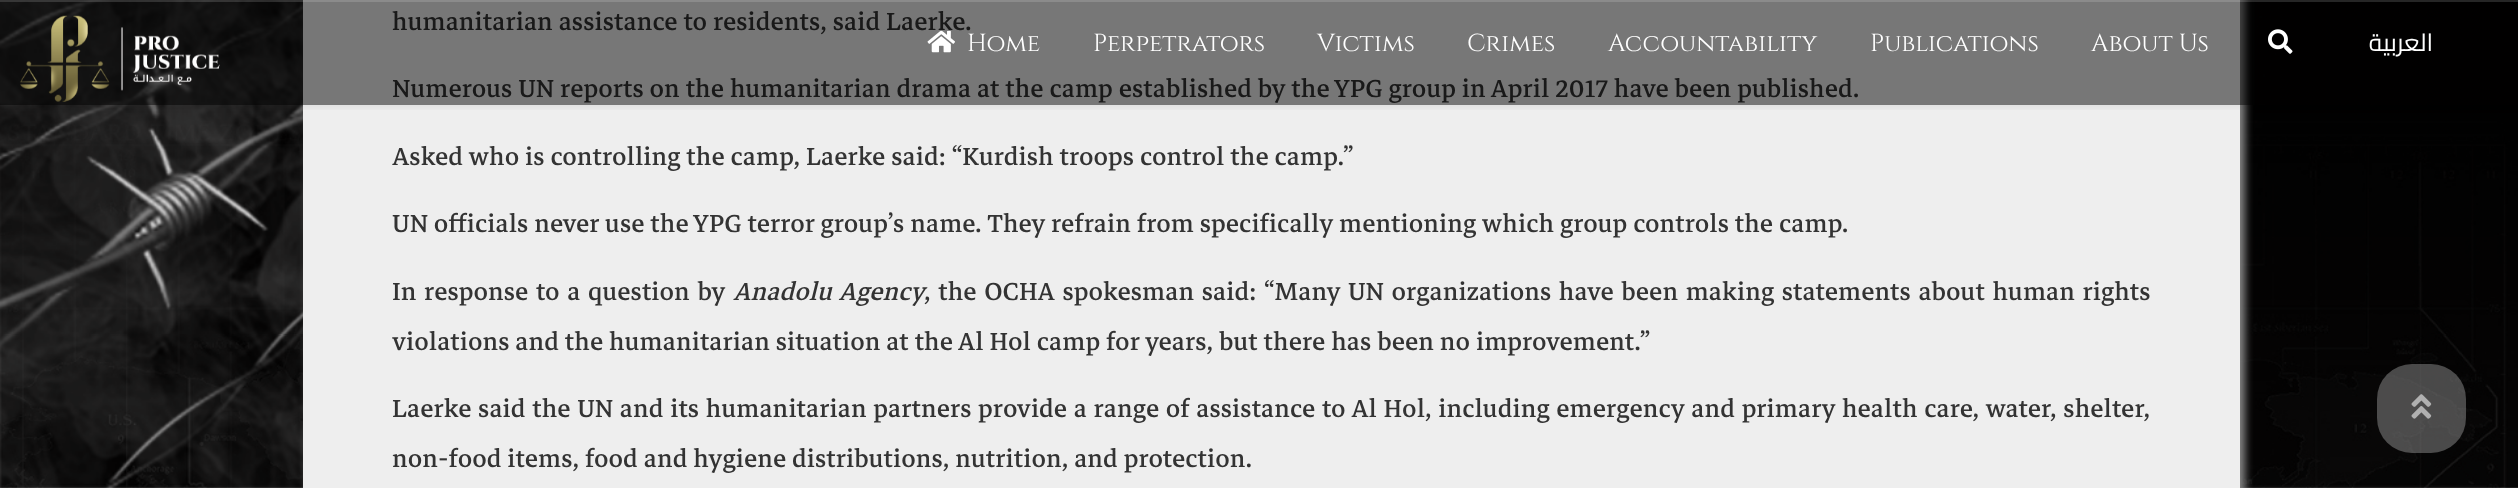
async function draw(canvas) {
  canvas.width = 2518
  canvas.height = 488
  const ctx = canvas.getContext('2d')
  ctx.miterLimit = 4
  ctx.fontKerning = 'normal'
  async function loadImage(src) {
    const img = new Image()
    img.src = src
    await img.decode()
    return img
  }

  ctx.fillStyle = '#fff'
  ctx.fillRect(0, 0, 2518, 488)
  ctx.drawImage(await loadImage('image0.png'), 0, 0, 2518, 488)
  ctx.fillStyle = '#888'
  ctx.filter = 'blur(4.5px)'
  ctx.beginPath()
  ctx.roundRect(308, -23, 1937, 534, 9)
  ctx.fill()
  ctx.filter = 'none'
  ctx.fillStyle = '#eee'
  ctx.fillRect(303, 0, 1937, 488)
  ctx.font = '35px Markazi Text'
  ctx.fillStyle = '#333'
  ctx.fillText('humanitarian assistance to residents, said Laerke.', 392, 30)
  ctx.fillText('Numerous UN reports on the humanitarian drama at the camp established by the YPG group in April 2017 have been published.', 392, 97)
  ctx.fillText('Asked who is controlling the camp, Laerke said: “Kurdish troops control the camp.”', 392, 165)
  ctx.fillText('UN officials never use the YPG terror group’s name. They refrain from specifically mentioning which group controls the camp.', 392, 232)
  ctx.wordSpacing = '1.75px'
  ctx.fillText('In response to a question by', 392, 300)
  ctx.wordSpacing = '2px'
  ctx.font = 'italic 35px Markazi Text'
  ctx.fillText('Anadolu Agency', 733, 300)
  ctx.wordSpacing = '1.75px'
  ctx.font = '35px Markazi Text'
  ctx.fillText(', the OCHA spokesman said: “Many UN organizations have been making statements about human rights', 924, 300)
  ctx.wordSpacing = '0px'
  ctx.fillText('violations and the humanitarian situation at the Al Hol camp for years, but there has been no improvement.”', 392, 350)
  ctx.wordSpacing = '0.8px'
  ctx.fillText('Laerke said the UN and its humanitarian partners provide a range of assistance to Al Hol, including emergency and primary health care, water, shelter,', 392, 417)
  ctx.wordSpacing = '0px'
  ctx.fillText('non-food items, food and hygiene distributions, nutrition, and protection.', 392, 467)
  ctx.save()
  ctx.beginPath()
  ctx.rect(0, 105, 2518, 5)
  ctx.clip()
  ctx.fillStyle = '#00000012'
  ctx.filter = 'blur(4.5px)'
  ctx.beginPath()
  ctx.rect(0, 2, 2518, 105)
  ctx.fill()
  ctx.filter = 'none'
  ctx.restore()
  ctx.fillStyle = '#00000080'
  ctx.fillRect(0, 0, 2253, 105)
  ctx.fillStyle = '#ffffff26'
  ctx.fillRect(0, 0, 2518, 2)
  ctx.drawImage(await loadImage('image1.png'), 20, 15, 200, 87)
  ctx.drawImage(await loadImage('image2.png'), 927, 30, 28, 23)
  ctx.font = '24.5px Cinzel'
  ctx.fillStyle = '#fff'
  ctx.fillText('Home', 967, 51)
  ctx.fillText('Perpetrators', 1093, 51)
  ctx.fillText('Victims', 1317, 51)
  ctx.fillText('Crimes', 1467, 51)
  ctx.fillText('Accountability', 1608, 51)
  ctx.fillText('Publications', 1870, 51)
  ctx.fillText('About Us', 2091, 51)
  ctx.drawImage(await loadImage('image3.png'), 2268, 29, 25, 25)
  ctx.direction = 'rtl'
  ctx.font = '24.5px Cairo'
  ctx.fillText('العربية', 2433, 51)
  ctx.fillStyle = '#ffffff47'
  ctx.beginPath()
  ctx.roundRect(2377, 364, 89, 89, 35)
  ctx.fill()
  ctx.drawImage(await loadImage('image4.png'), 2411, 394, 21, 25)
}

draw(document.querySelector('canvas'))
